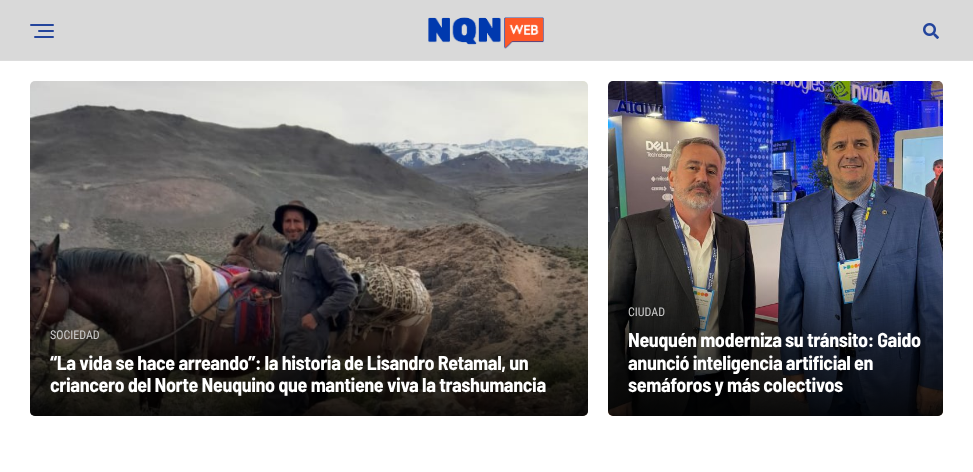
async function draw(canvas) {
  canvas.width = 973
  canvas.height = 472
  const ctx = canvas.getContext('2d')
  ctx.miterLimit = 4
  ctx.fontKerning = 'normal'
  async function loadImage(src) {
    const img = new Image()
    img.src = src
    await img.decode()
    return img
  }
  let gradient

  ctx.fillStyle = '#fff'
  ctx.fillRect(0, 0, 973, 472)
  ctx.fillStyle = '#d9d9d9'
  ctx.fillRect(0, 0, 973, 60)
  ctx.fillStyle = '#ddd'
  ctx.fillRect(0, 60, 973, 1)
  ctx.fillStyle = '#24459c'
  ctx.beginPath()
  ctx.roundRect(30, 24, 24, 2, 1)
  ctx.fill()
  ctx.beginPath()
  ctx.roundRect(38, 30, 16, 2, 1)
  ctx.fill()
  ctx.beginPath()
  ctx.roundRect(34, 36, 20, 2, 1)
  ctx.fill()
  ctx.drawImage(await loadImage('image0.png'), 428, 17, 116, 32)
  ctx.drawImage(await loadImage('image1.png'), 923, 23, 16, 16)
  ctx.drawImage(await loadImage('image2.png'), 30, 81, 558, 335)
  gradient = ctx.createLinearGradient(309, 289, 309, 416)
  gradient.addColorStop(0, '#00000000')
  gradient.addColorStop(0.5, '#00000099')
  gradient.addColorStop(1, '#000000e6')
  ctx.fillStyle = gradient
  ctx.beginPath()
  ctx.roundRect(30, 289, 558, 127, [0, 0, 5, 5])
  ctx.fill()
  ctx.font = '12px Roboto Condensed'
  ctx.fillStyle = '#ccc'
  ctx.fillText('SOCIEDAD', 50, 339)
  ctx.letterSpacing = '-0.4px'
  ctx.font = 'bold 20px Barlow Semi Condensed'
  ctx.fillStyle = '#fff'
  ctx.fillText('“La vida se hace arreando”: la historia de Lisandro Retamal, un', 50, 370)
  ctx.fillText('criancero del Norte Neuquino que mantiene viva la trashumancia', 50, 392)
  ctx.drawImage(await loadImage('image3.png'), 608, 81, 335, 335)
  gradient = ctx.createLinearGradient(776, 266, 776, 416)
  gradient.addColorStop(0, '#00000000')
  gradient.addColorStop(0.5, '#00000099')
  gradient.addColorStop(1, '#000000e6')
  ctx.fillStyle = gradient
  ctx.beginPath()
  ctx.roundRect(608, 266, 335, 150, [0, 0, 5, 5])
  ctx.fill()
  ctx.letterSpacing = '0px'
  ctx.font = '12px Roboto Condensed'
  ctx.fillStyle = '#ccc'
  ctx.fillText('CIUDAD', 628, 316)
  ctx.letterSpacing = '-0.4px'
  ctx.font = 'bold 20px Barlow Semi Condensed'
  ctx.fillStyle = '#fff'
  ctx.fillText('Neuquén moderniza su tránsito: Gaido', 628, 347)
  ctx.fillText('anunció inteligencia artificial en', 628, 370)
  ctx.fillText('semáforos y más colectivos', 628, 392)
}

draw(document.querySelector('canvas'))
